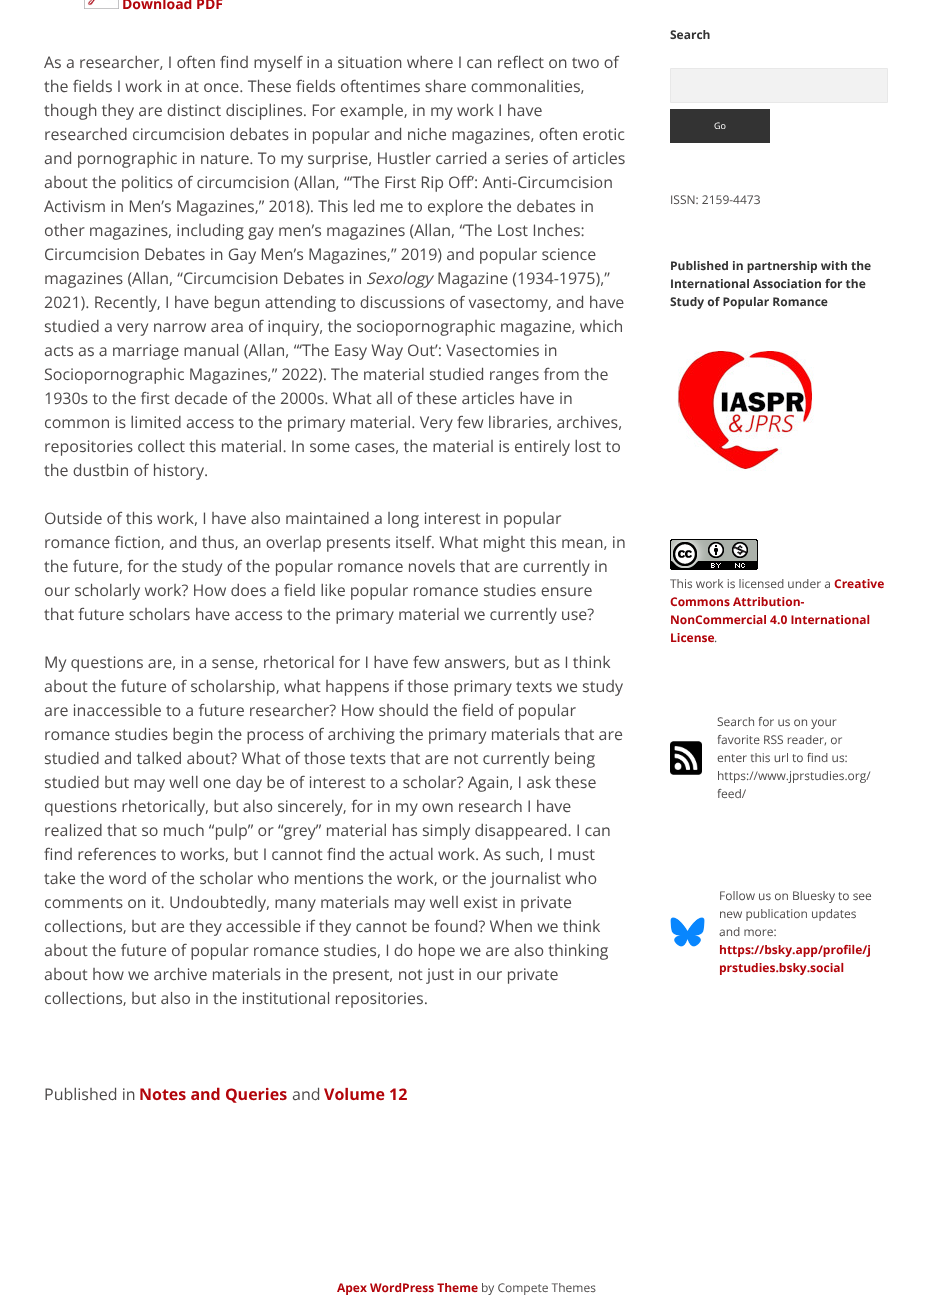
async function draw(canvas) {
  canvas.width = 932
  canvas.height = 1310
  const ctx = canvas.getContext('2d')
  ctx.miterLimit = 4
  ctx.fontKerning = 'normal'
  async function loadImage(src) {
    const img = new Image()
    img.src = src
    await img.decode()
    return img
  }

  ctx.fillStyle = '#fff'
  ctx.fillRect(0, 0, 932, 1310)
  ctx.drawImage(await loadImage('image0.png'), 84, 0, 35, 9)
  ctx.font = 'bold 14px Open Sans'
  ctx.fillStyle = '#b2050b'
  ctx.fillText('Download PDF', 122, 9)
  ctx.font = '16px Open Sans'
  ctx.fillStyle = '#4d4a4a'
  ctx.fillText('As a researcher, I often find myself in a situation where I can reflect on two of', 44, 68)
  ctx.fillText('the fields I work in at once. These fields oftentimes share commonalities,', 44, 92)
  ctx.fillText('though they are distinct disciplines. For example, in my work I have', 44, 116)
  ctx.fillText('researched circumcision debates in popular and niche magazines, often erotic', 44, 140)
  ctx.fillText('and pornographic in nature. To my surprise, Hustler carried a series of articles', 44, 164)
  ctx.fillText('about the politics of circumcision (Allan, “‘The First Rip Off’: Anti-Circumcision', 44, 188)
  ctx.fillText('Activism in Men’s Magazines,” 2018). This led me to explore the debates in', 44, 212)
  ctx.fillText('other magazines, including gay men’s magazines (Allan, “The Lost Inches:', 44, 236)
  ctx.fillText('Circumcision Debates in Gay Men’s Magazines,” 2019) and popular science', 44, 260)
  ctx.fillText('magazines (Allan, “Circumcision Debates in', 44, 284)
  ctx.font = 'italic 16px Open Sans'
  ctx.fillText('Sexology', 366, 284)
  ctx.font = '16px Open Sans'
  ctx.fillText('Magazine (1934-1975),”', 437, 284)
  ctx.fillText('2021). Recently, I have begun attending to discussions of vasectomy, and have', 44, 308)
  ctx.fillText('studied a very narrow area of inquiry, the sociopornographic magazine, which', 44, 332)
  ctx.fillText('acts as a marriage manual (Allan, “‘The Easy Way Out’: Vasectomies in', 44, 356)
  ctx.fillText('Sociopornographic Magazines,” 2022). The material studied ranges from the', 44, 380)
  ctx.fillText('1930s to the first decade of the 2000s. What all of these articles have in', 44, 404)
  ctx.fillText('common is limited access to the primary material. Very few libraries, archives,', 44, 428)
  ctx.fillText('repositories collect this material. In some cases, the material is entirely lost to', 44, 452)
  ctx.fillText('the dustbin of history.', 44, 476)
  ctx.fillText('Outside of this work, I have also maintained a long interest in popular', 44, 524)
  ctx.fillText('romance fiction, and thus, an overlap presents itself. What might this mean, in', 44, 548)
  ctx.fillText('the future, for the study of the popular romance novels that are currently in', 44, 572)
  ctx.fillText('our scholarly work? How does a field like popular romance studies ensure', 44, 596)
  ctx.fillText('that future scholars have access to the primary material we currently use?', 44, 620)
  ctx.fillText('My questions are, in a sense, rhetorical for I have few answers, but as I think', 44, 668)
  ctx.fillText('about the future of scholarship, what happens if those primary texts we study', 44, 692)
  ctx.fillText('are inaccessible to a future researcher? How should the field of popular', 44, 716)
  ctx.fillText('romance studies begin the process of archiving the primary materials that are', 44, 740)
  ctx.fillText('studied and talked about? What of those texts that are not currently being', 44, 764)
  ctx.fillText('studied but may well one day be of interest to a scholar? Again, I ask these', 44, 788)
  ctx.fillText('questions rhetorically, but also sincerely, for in my own research I have', 44, 812)
  ctx.fillText('realized that so much “pulp” or “grey” material has simply disappeared. I can', 44, 836)
  ctx.fillText('find references to works, but I cannot find the actual work. As such, I must', 44, 860)
  ctx.fillText('take the word of the scholar who mentions the work, or the journalist who', 44, 884)
  ctx.fillText('comments on it. Undoubtedly, many materials may well exist in private', 44, 908)
  ctx.fillText('collections, but are they accessible if they cannot be found? When we think', 44, 932)
  ctx.fillText('about the future of popular romance studies, I do hope we are also thinking', 44, 956)
  ctx.fillText('about how we archive materials in the present, not just in our private', 44, 980)
  ctx.fillText('collections, but also in the institutional repositories.', 44, 1004)
  ctx.fillText('Published in', 44, 1100)
  ctx.font = 'bold 16px Open Sans'
  ctx.fillStyle = '#b2050b'
  ctx.fillText('Notes and Queries', 139, 1100)
  ctx.font = '16px Open Sans'
  ctx.fillStyle = '#4d4a4a'
  ctx.fillText('and', 292, 1100)
  ctx.font = 'bold 16px Open Sans'
  ctx.fillStyle = '#b2050b'
  ctx.fillText('Volume 12', 324, 1100)
  ctx.font = 'bold 12px Open Sans'
  ctx.fillStyle = '#333'
  ctx.fillText('Search', 670, 39)
  ctx.fillStyle = '#f2f2f2'
  ctx.beginPath()
  ctx.rect(670.5, 68.5, 217, 34)
  ctx.fill()
  ctx.strokeStyle = '#e8e8e8'
  ctx.stroke()
  ctx.fillStyle = '#333'
  ctx.fillRect(670, 109, 100, 34)
  ctx.font = '9px Open Sans'
  ctx.fillStyle = '#fff'
  ctx.fillText('Go', 714, 129)
  ctx.font = '12px Open Sans'
  ctx.fillStyle = '#4d4a4a'
  ctx.fillText('ISSN: 2159-4473', 670, 204)
  ctx.font = 'bold 12px Open Sans'
  ctx.fillStyle = '#333'
  ctx.fillText('Published in partnership with the', 670, 270)
  ctx.fillText('International Association for the', 670, 288)
  ctx.fillText('Study of Popular Romance', 670, 306)
  ctx.drawImage(await loadImage('image1.png'), 677, 351, 137, 120)
  ctx.drawImage(await loadImage('image2.png'), 670, 539, 88, 31)
  ctx.font = '12px Open Sans'
  ctx.fillStyle = '#4d4a4a'
  ctx.fillText('This work is licensed under a', 670, 588)
  ctx.font = 'bold 12px Open Sans'
  ctx.fillStyle = '#b2050b'
  ctx.fillText('Creative', 834, 588)
  ctx.fillText('Commons Attribution-', 670, 606)
  ctx.fillText('NonCommercial 4.0 International', 670, 624)
  ctx.fillText('License', 670, 642)
  ctx.font = '12px Open Sans'
  ctx.fillStyle = '#4d4a4a'
  ctx.fillText('.', 714, 642)
  ctx.drawImage(await loadImage('image3.png'), 670, 741, 32, 34)
  ctx.fillText('Search for us on your', 717, 726)
  ctx.fillText('favorite RSS reader, or', 717, 744)
  ctx.fillText('enter this url to find us:', 717, 762)
  ctx.fillText('https://www.jprstudies.org/', 717, 780)
  ctx.fillText('feed/', 717, 798)
  ctx.drawImage(await loadImage('image4.png'), 670, 917, 35, 30)
  ctx.fillText('Follow us on Bluesky to see', 719, 900)
  ctx.fillText('new publication updates', 719, 918)
  ctx.fillText('and more:', 719, 936)
  ctx.font = 'bold 12px Open Sans'
  ctx.fillStyle = '#b2050b'
  ctx.fillText('https://bsky.app/profile/j', 719, 954)
  ctx.fillText('prstudies.bsky.social', 719, 972)
  ctx.fillText('Apex WordPress Theme', 337, 1292)
  ctx.font = '12px Open Sans'
  ctx.fillStyle = '#4d4a4a'
  ctx.fillText('by Compete Themes', 481, 1292)
}

draw(document.querySelector('canvas'))
